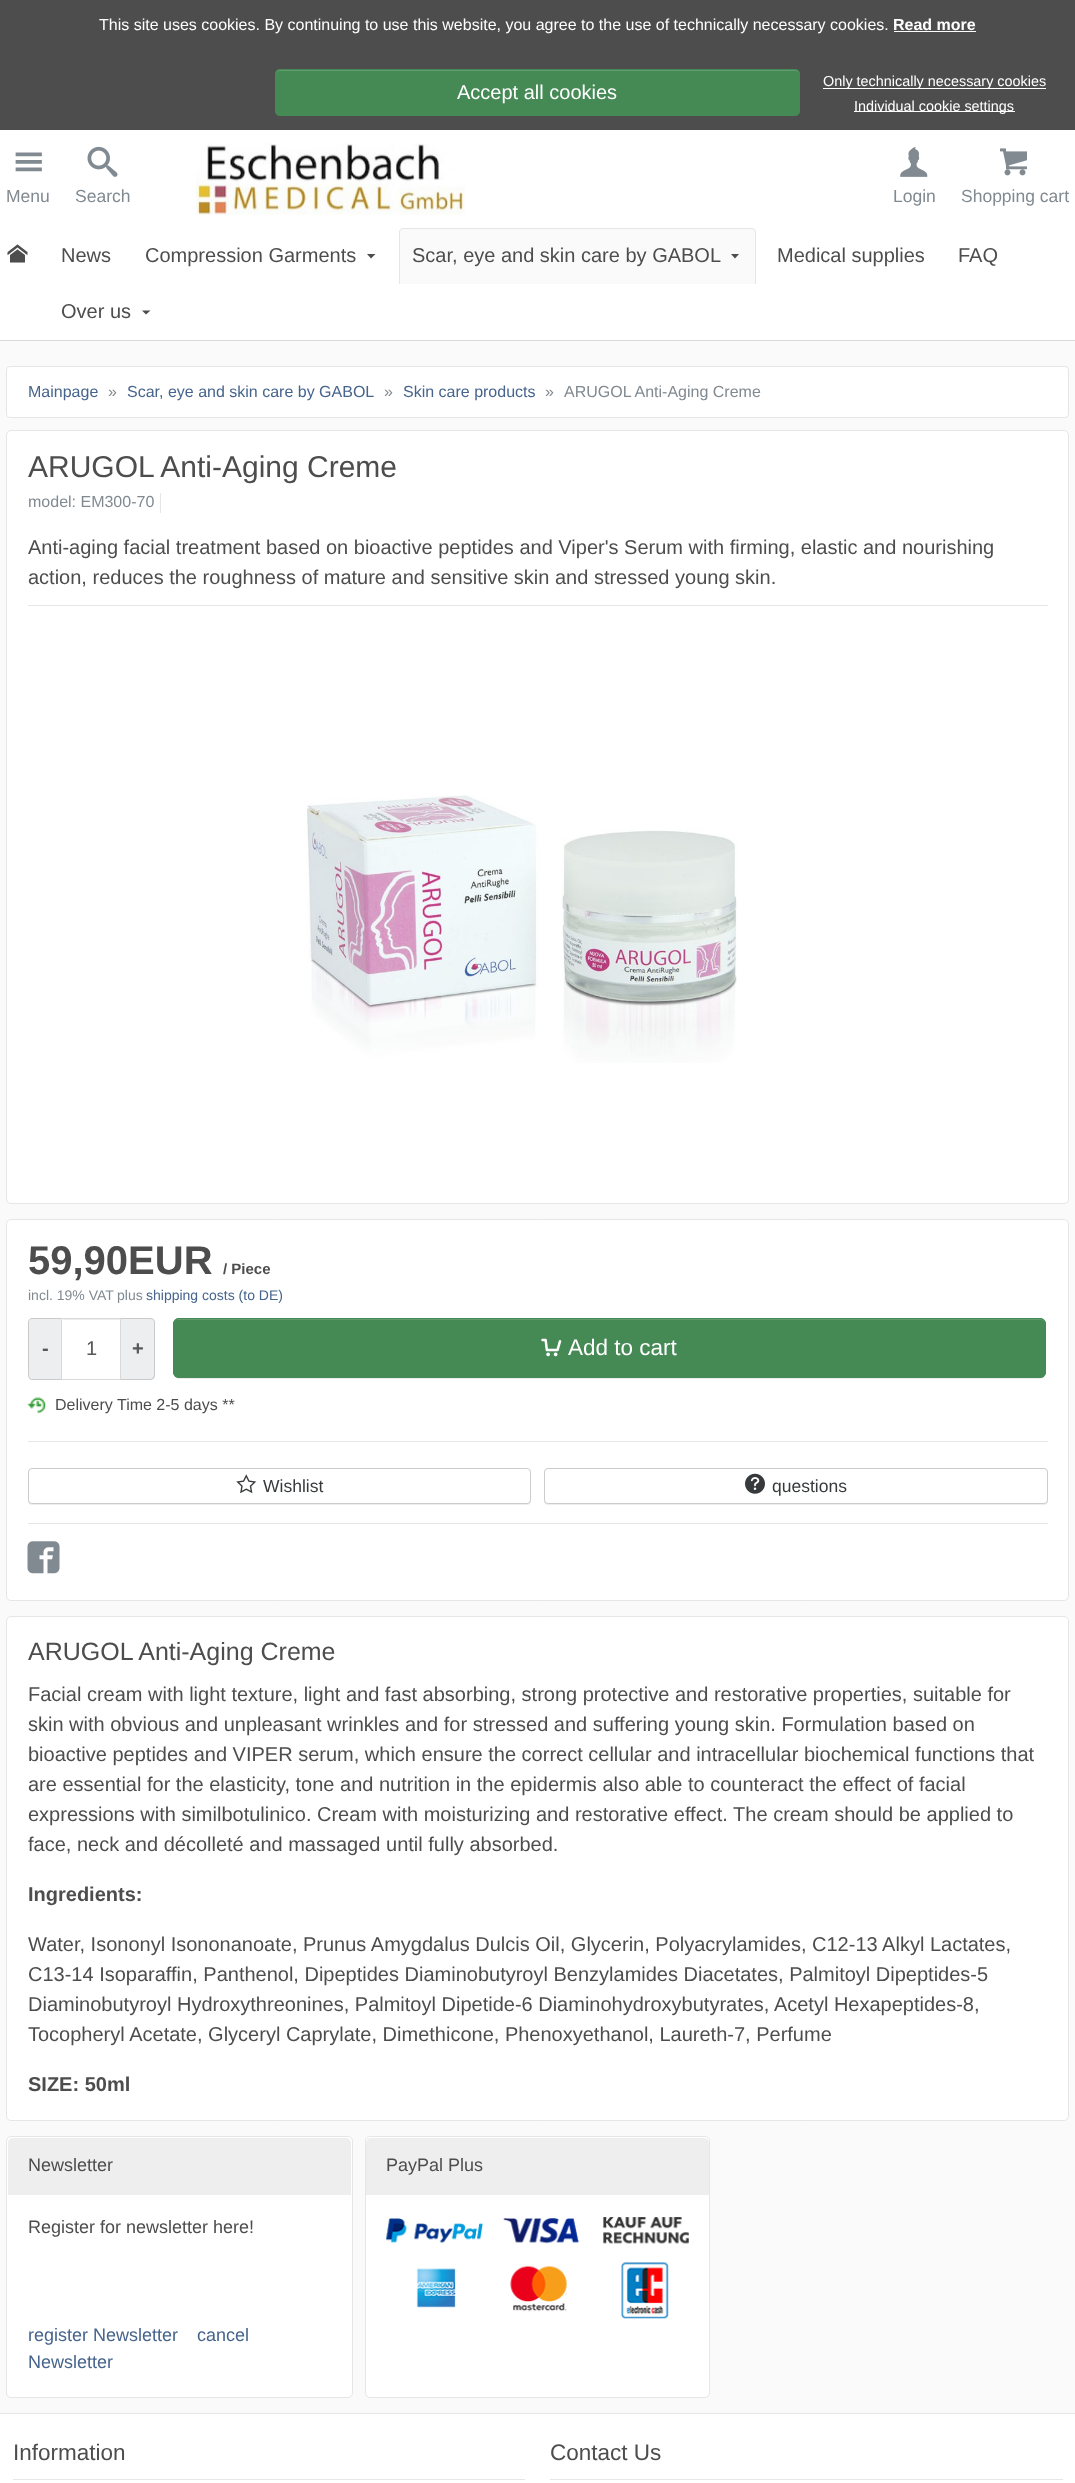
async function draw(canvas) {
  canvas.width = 1075
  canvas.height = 2483
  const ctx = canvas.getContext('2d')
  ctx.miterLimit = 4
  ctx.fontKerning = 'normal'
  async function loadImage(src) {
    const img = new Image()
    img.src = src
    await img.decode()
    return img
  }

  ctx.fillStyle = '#fafafa'
  ctx.fillRect(0, 0, 1075, 2483)
  ctx.fillStyle = '#fff'
  ctx.fillRect(0, 130, 1075, 210)
  ctx.fillStyle = '#4d4d4d'
  ctx.fillRect(0, 0, 1075, 130)
  ctx.font = '16px Liberation Sans'
  ctx.fillStyle = '#fff'
  ctx.fillText('This site uses cookies. By continuing to use this website, you agree to the use of technically necessary cookies.', 99, 30)
  ctx.font = 'bold 16px Liberation Sans'
  ctx.fillText('Read more', 893, 30)
  ctx.fillRect(894, 31, 82, 1)
  ctx.fillStyle = '#458955'
  ctx.beginPath()
  ctx.roundRect(275, 69, 525, 47, 5)
  ctx.fill()
  ctx.fillStyle = '#619b6f'
  ctx.beginPath()
  ctx.moveTo(280, 71)
  ctx.lineTo(795, 71)
  ctx.bezierCurveTo(797, 71, 799, 73, 799, 75)
  ctx.lineTo(799, 74)
  ctx.bezierCurveTo(799, 72, 797, 70, 795, 70)
  ctx.lineTo(280, 70)
  ctx.bezierCurveTo(278, 70, 276, 72, 276, 74)
  ctx.lineTo(276, 75)
  ctx.bezierCurveTo(276, 73, 278, 71, 280, 71)
  ctx.closePath()
  ctx.fill()
  ctx.beginPath()
  ctx.roundRect(275.5, 69.5, 524, 46, 4.5)
  ctx.strokeStyle = '#458955'
  ctx.stroke()
  ctx.font = '20px Liberation Sans'
  ctx.fillStyle = '#fff'
  ctx.fillText('Accept all cookies', 457, 99)
  ctx.fillRect(823, 88, 223, 1)
  ctx.font = '14.4px Liberation Sans'
  ctx.fillText('Only technically necessary cookies', 823, 86)
  ctx.fillRect(854, 111, 161, 1)
  ctx.fillText('Individual cookie settings', 854, 111)
  ctx.drawImage(await loadImage('image0.png'), 15, 152, 27, 20)
  ctx.font = '17.5px Liberation Sans'
  ctx.fillStyle = '#818a91'
  ctx.fillText('Menu', 6, 202)
  ctx.drawImage(await loadImage('image1.png'), 87, 146, 31, 31)
  ctx.fillText('Search', 75, 202)
  ctx.drawImage(await loadImage('image2.png'), 196, 143, 269, 72)
  ctx.drawImage(await loadImage('image3.png'), 900, 147, 28, 30)
  ctx.fillText('Login', 893, 202)
  ctx.drawImage(await loadImage('image4.png'), 1000, 148, 27, 28)
  ctx.fillText('Shopping cart', 961, 202)
  ctx.fillStyle = '#d9d9d9'
  ctx.fillRect(0, 340, 1075, 1)
  ctx.drawImage(await loadImage('image5.png'), 7, 244, 21, 19)
  ctx.font = '20px Liberation Sans'
  ctx.fillStyle = '#4d4d4d'
  ctx.fillText('News', 61, 262)
  ctx.fillText('Compression Garments', 145, 262)
  ctx.beginPath()
  ctx.moveTo(367, 254)
  ctx.lineTo(371, 258.5)
  ctx.lineTo(375.5, 254)
  ctx.closePath()
  ctx.fill()
  ctx.fillStyle = '#fafafa'
  ctx.beginPath()
  ctx.roundRect(400, 229, 355, 55, [4, 4, 0, 0])
  ctx.fill()
  ctx.fillStyle = '#e6e6e6'
  ctx.beginPath()
  ctx.moveTo(404, 228)
  ctx.lineTo(751, 228)
  ctx.bezierCurveTo(754, 228, 756, 230, 756, 232)
  ctx.lineTo(756, 284)
  ctx.lineTo(399, 284)
  ctx.lineTo(399, 232)
  ctx.bezierCurveTo(399, 230, 401, 228, 404, 228)
  ctx.closePath()
  ctx.moveTo(404, 229)
  ctx.lineTo(751, 229)
  ctx.bezierCurveTo(753, 229, 755, 230, 755, 232)
  ctx.lineTo(755, 284)
  ctx.lineTo(400, 284)
  ctx.lineTo(400, 232)
  ctx.bezierCurveTo(400, 230, 402, 229, 404, 229)
  ctx.closePath()
  ctx.fill('evenodd')
  ctx.fillStyle = '#4d4d4d'
  ctx.fillText('Scar, eye and skin care by GABOL', 412, 262)
  ctx.beginPath()
  ctx.moveTo(731, 254)
  ctx.lineTo(735, 258.5)
  ctx.lineTo(739, 254)
  ctx.closePath()
  ctx.fill()
  ctx.fillText('Medical supplies', 777, 262)
  ctx.fillText('FAQ', 958, 262)
  ctx.fillText('Over us', 61, 318)
  ctx.beginPath()
  ctx.moveTo(142, 310.5)
  ctx.lineTo(146, 314.5)
  ctx.lineTo(150.5, 310.5)
  ctx.closePath()
  ctx.fill()
  ctx.fillStyle = '#fff'
  ctx.beginPath()
  ctx.roundRect(6.5, 366.5, 1062, 51, 3.5)
  ctx.fill()
  ctx.strokeStyle = '#e6e6e6'
  ctx.stroke()
  ctx.font = '16px Liberation Sans'
  ctx.fillStyle = '#46648c'
  ctx.fillText('Mainpage', 28, 397)
  ctx.fillStyle = '#818a91'
  ctx.fillText('»', 108, 397)
  ctx.fillStyle = '#46648c'
  ctx.fillText('Scar, eye and skin care by GABOL', 127, 397)
  ctx.fillStyle = '#818a91'
  ctx.fillText('»', 384, 397)
  ctx.fillStyle = '#46648c'
  ctx.fillText('Skin care products', 403, 397)
  ctx.fillStyle = '#818a91'
  ctx.fillText('»', 545, 397)
  ctx.fillText('ARUGOL Anti-Aging Creme', 564, 397)
  ctx.fillStyle = '#fff'
  ctx.beginPath()
  ctx.roundRect(6.5, 430.5, 1062, 773, 4.5)
  ctx.fill()
  ctx.stroke()
  ctx.font = '30px Liberation Sans'
  ctx.fillStyle = '#4d4d4d'
  ctx.fillText('ARUGOL Anti-Aging Creme', 28, 477)
  ctx.font = '16px Liberation Sans'
  ctx.fillStyle = '#818a91'
  ctx.fillText('model: EM300-70', 28, 507)
  ctx.fillStyle = '#e6e6e6'
  ctx.fillRect(160, 493, 1, 20)
  ctx.font = '20px Liberation Sans'
  ctx.fillStyle = '#4d4d4d'
  ctx.fillText('Anti-aging facial treatment based on bioactive peptides and Viper\'s Serum with firming, elastic and nourishing', 28, 554)
  ctx.fillText('action, reduces the roughness of mature and sensitive skin and stressed young skin.', 28, 584)
  ctx.fillStyle = '#e6e6e6'
  ctx.fillRect(28, 605, 1020, 1)
  ctx.drawImage(await loadImage('image6.png'), 306, 795, 431, 268)
  ctx.fillStyle = '#fff'
  ctx.beginPath()
  ctx.roundRect(6.5, 1219.5, 1062, 381, 4.5)
  ctx.fill()
  ctx.stroke()
  ctx.font = 'bold 40px Liberation Sans'
  ctx.fillStyle = '#4d4d4d'
  ctx.fillText('59,90EUR', 28, 1274)
  ctx.font = 'bold 15px Liberation Sans'
  ctx.fillText('/ Piece', 223, 1274)
  ctx.font = '14px Liberation Sans'
  ctx.fillStyle = '#818a91'
  ctx.fillText('incl. 19% VAT', 28, 1300)
  ctx.fillText('plus', 117, 1300)
  ctx.fillStyle = '#46648c'
  ctx.fillText('shipping costs (to DE)', 146, 1300)
  ctx.fillStyle = '#eceeef'
  ctx.beginPath()
  ctx.roundRect(28, 1318, 33, 62, [5, 0, 0, 5])
  ctx.fill()
  ctx.fillStyle = '#00000026'
  ctx.beginPath()
  ctx.moveTo(32, 1318)
  ctx.lineTo(61, 1318)
  ctx.lineTo(61, 1380)
  ctx.lineTo(32, 1380)
  ctx.bezierCurveTo(30, 1380, 28, 1378, 28, 1375)
  ctx.lineTo(28, 1322)
  ctx.bezierCurveTo(28, 1320, 30, 1318, 32, 1318)
  ctx.closePath()
  ctx.moveTo(32, 1319)
  ctx.lineTo(61, 1319)
  ctx.lineTo(61, 1379)
  ctx.lineTo(32, 1379)
  ctx.bezierCurveTo(30, 1379, 29, 1377, 29, 1375)
  ctx.lineTo(29, 1322)
  ctx.bezierCurveTo(29, 1320, 30, 1319, 32, 1319)
  ctx.closePath()
  ctx.fill('evenodd')
  ctx.font = 'bold 20px Liberation Sans'
  ctx.fillStyle = '#55595c'
  ctx.fillText('-', 42, 1355)
  ctx.fillStyle = '#ececec'
  ctx.fillRect(63, 1319, 57, 1)
  ctx.strokeStyle = '#d9d9d9'
  ctx.strokeRect(61.5, 1318.5, 59, 61)
  ctx.font = '20px Liberation Sans'
  ctx.fillStyle = '#55595c'
  ctx.fillText('1', 86, 1355)
  ctx.fillStyle = '#eceeef'
  ctx.beginPath()
  ctx.roundRect(121, 1318, 34, 62, [0, 5, 5, 0])
  ctx.fill()
  ctx.fillStyle = '#00000026'
  ctx.beginPath()
  ctx.moveTo(121, 1318)
  ctx.lineTo(150, 1318)
  ctx.bezierCurveTo(153, 1318, 155, 1320, 155, 1322)
  ctx.lineTo(155, 1375)
  ctx.bezierCurveTo(155, 1378, 153, 1380, 150, 1380)
  ctx.lineTo(121, 1380)
  ctx.closePath()
  ctx.moveTo(121, 1319)
  ctx.lineTo(150, 1319)
  ctx.bezierCurveTo(152, 1319, 154, 1320, 154, 1322)
  ctx.lineTo(154, 1375)
  ctx.bezierCurveTo(154, 1377, 152, 1379, 150, 1379)
  ctx.lineTo(121, 1379)
  ctx.closePath()
  ctx.fill('evenodd')
  ctx.font = 'bold 20px Liberation Sans'
  ctx.fillStyle = '#55595c'
  ctx.fillText('+', 132, 1355)
  ctx.fillStyle = '#00000012'
  ctx.filter = 'blur(0.5px)'
  ctx.beginPath()
  ctx.roundRect(173, 1319, 873, 60, 6)
  ctx.fill()
  ctx.filter = 'none'
  ctx.fillStyle = '#458955'
  ctx.beginPath()
  ctx.roundRect(173, 1318, 873, 60, 6)
  ctx.fill()
  ctx.fillStyle = '#619b6f'
  ctx.beginPath()
  ctx.moveTo(178, 1320)
  ctx.lineTo(1040, 1320)
  ctx.bezierCurveTo(1043, 1320, 1045, 1322, 1045, 1325)
  ctx.lineTo(1045, 1324)
  ctx.bezierCurveTo(1045, 1321, 1043, 1319, 1040, 1319)
  ctx.lineTo(179, 1319)
  ctx.bezierCurveTo(176, 1319, 174, 1321, 174, 1324)
  ctx.bezierCurveTo(174, 1322, 176, 1320, 178, 1320)
  ctx.closePath()
  ctx.fill()
  ctx.beginPath()
  ctx.roundRect(173.5, 1318.5, 872, 59, 5.5)
  ctx.strokeStyle = '#458955'
  ctx.stroke()
  ctx.drawImage(await loadImage('image7.png'), 541, 1338, 21, 19)
  ctx.font = '22.5px Liberation Sans'
  ctx.fillStyle = '#fff'
  ctx.fillText('Add to cart', 568, 1355)
  ctx.drawImage(await loadImage('image8.png'), 27, 1397, 20, 17)
  ctx.font = '16px Liberation Sans'
  ctx.fillStyle = '#4d4d4d'
  ctx.fillText('Delivery Time 2-5 days **', 55, 1410)
  ctx.fillStyle = '#e6e6e6'
  ctx.fillRect(28, 1441, 1020, 1)
  ctx.fillStyle = '#00000012'
  ctx.filter = 'blur(0.5px)'
  ctx.beginPath()
  ctx.roundRect(28, 1469, 503, 36, 4)
  ctx.fill()
  ctx.filter = 'none'
  ctx.fillStyle = '#fff'
  ctx.beginPath()
  ctx.roundRect(28.5, 1468.5, 502, 35, 3.5)
  ctx.fill()
  ctx.strokeStyle = '#ccc'
  ctx.stroke()
  ctx.drawImage(await loadImage('image9.png'), 236, 1474, 21, 20)
  ctx.font = '17.5px Liberation Sans'
  ctx.fillStyle = '#373a3c'
  ctx.fillText('Wishlist', 263, 1492)
  ctx.fillStyle = '#00000012'
  ctx.filter = 'blur(0.5px)'
  ctx.beginPath()
  ctx.roundRect(544, 1469, 504, 36, 4)
  ctx.fill()
  ctx.filter = 'none'
  ctx.fillStyle = '#fff'
  ctx.beginPath()
  ctx.roundRect(544.5, 1468.5, 503, 35, 3.5)
  ctx.fill()
  ctx.stroke()
  ctx.drawImage(await loadImage('image10.png'), 745, 1473, 20, 21)
  ctx.fillStyle = '#373a3c'
  ctx.fillText('questions', 772, 1492)
  ctx.fillStyle = '#e6e6e6'
  ctx.fillRect(28, 1523, 1020, 1)
  ctx.drawImage(await loadImage('image11.png'), 27, 1541, 33, 33)
  ctx.fillStyle = '#fff'
  ctx.beginPath()
  ctx.roundRect(6.5, 1616.5, 1062, 504, 4.5)
  ctx.fill()
  ctx.strokeStyle = '#e6e6e6'
  ctx.stroke()
  ctx.font = '25px Liberation Sans'
  ctx.fillStyle = '#4d4d4d'
  ctx.fillText('ARUGOL Anti-Aging Creme', 28, 1660)
  ctx.font = '20px Liberation Sans'
  ctx.fillText('Facial cream with light texture, light and fast absorbing, strong protective and restorative properties, suitable for', 28, 1701)
  ctx.fillText('skin with obvious and unpleasant wrinkles and for stressed and suffering young skin. Formulation based on', 28, 1731)
  ctx.fillText('bioactive peptides and VIPER serum, which ensure the correct cellular and intracellular biochemical functions that', 28, 1761)
  ctx.fillText('are essential for the elasticity, tone and nutrition in the epidermis also able to counteract the effect of facial', 28, 1791)
  ctx.fillText('expressions with similbotulinico. Cream with moisturizing and restorative effect. The cream should be applied to', 28, 1821)
  ctx.fillText('face, neck and décolleté and massaged until fully absorbed.', 28, 1851)
  ctx.font = 'bold 20px Liberation Sans'
  ctx.fillText('Ingredients:', 28, 1901)
  ctx.font = '20px Liberation Sans'
  ctx.fillText('Water, Isononyl Isononanoate, Prunus Amygdalus Dulcis Oil, Glycerin, Polyacrylamides, C12-13 Alkyl Lactates,', 28, 1951)
  ctx.fillText('C13-14 Isoparaffin, Panthenol, Dipeptides Diaminobutyroyl Benzylamides Diacetates, Palmitoyl Dipeptides-5', 28, 1981)
  ctx.fillText('Diaminobutyroyl Hydroxythreonines, Palmitoyl Dipetide-6 Diaminohydroxybutyrates, Acetyl Hexapeptides-8,', 28, 2011)
  ctx.fillText('Tocopheryl Acetate, Glyceryl Caprylate, Dimethicone, Phenoxyethanol, Laureth-7, Perfume', 28, 2041)
  ctx.font = 'bold 20px Liberation Sans'
  ctx.fillText('SIZE: 50ml', 28, 2091)
  ctx.fillStyle = '#fff'
  ctx.beginPath()
  ctx.roundRect(6.5, 2136.5, 346, 261, 4.5)
  ctx.fill()
  ctx.stroke()
  ctx.fillStyle = '#eee'
  ctx.beginPath()
  ctx.roundRect(8, 2138, 343, 57, [5, 5, 0, 0])
  ctx.fill()
  ctx.font = '18px Liberation Sans'
  ctx.fillStyle = '#4d4d4d'
  ctx.fillText('Newsletter', 28, 2171)
  ctx.fillText('Register for newsletter here!', 28, 2233)
  ctx.fillStyle = '#46648c'
  ctx.fillText('register Newsletter', 28, 2341)
  ctx.fillText('cancel', 197, 2341)
  ctx.fillText('Newsletter', 28, 2368)
  ctx.fillStyle = '#fff'
  ctx.beginPath()
  ctx.roundRect(365.5, 2136.5, 344, 261, 4.5)
  ctx.fill()
  ctx.stroke()
  ctx.fillStyle = '#eee'
  ctx.beginPath()
  ctx.roundRect(366, 2138, 343, 57, [5, 5, 0, 0])
  ctx.fill()
  ctx.fillStyle = '#4d4d4d'
  ctx.fillText('PayPal Plus', 386, 2171)
  ctx.drawImage(await loadImage('image12.png'), 386, 2217, 303, 102)
  ctx.fillStyle = '#fff'
  ctx.fillRect(0, 2414, 1075, 69)
  ctx.fillStyle = '#e6e6e6'
  ctx.fillRect(0, 2413, 1075, 1)
  ctx.font = '22.5px Liberation Sans'
  ctx.fillStyle = '#4d4d4d'
  ctx.fillText('Information', 13, 2460)
  ctx.fillStyle = '#e6e6e6'
  ctx.fillRect(13, 2479, 512, 1)
  ctx.fillStyle = '#4d4d4d'
  ctx.fillText('Contact Us', 550, 2460)
  ctx.fillStyle = '#e6e6e6'
  ctx.fillRect(550, 2479, 513, 1)
}

draw(document.querySelector('canvas'))
